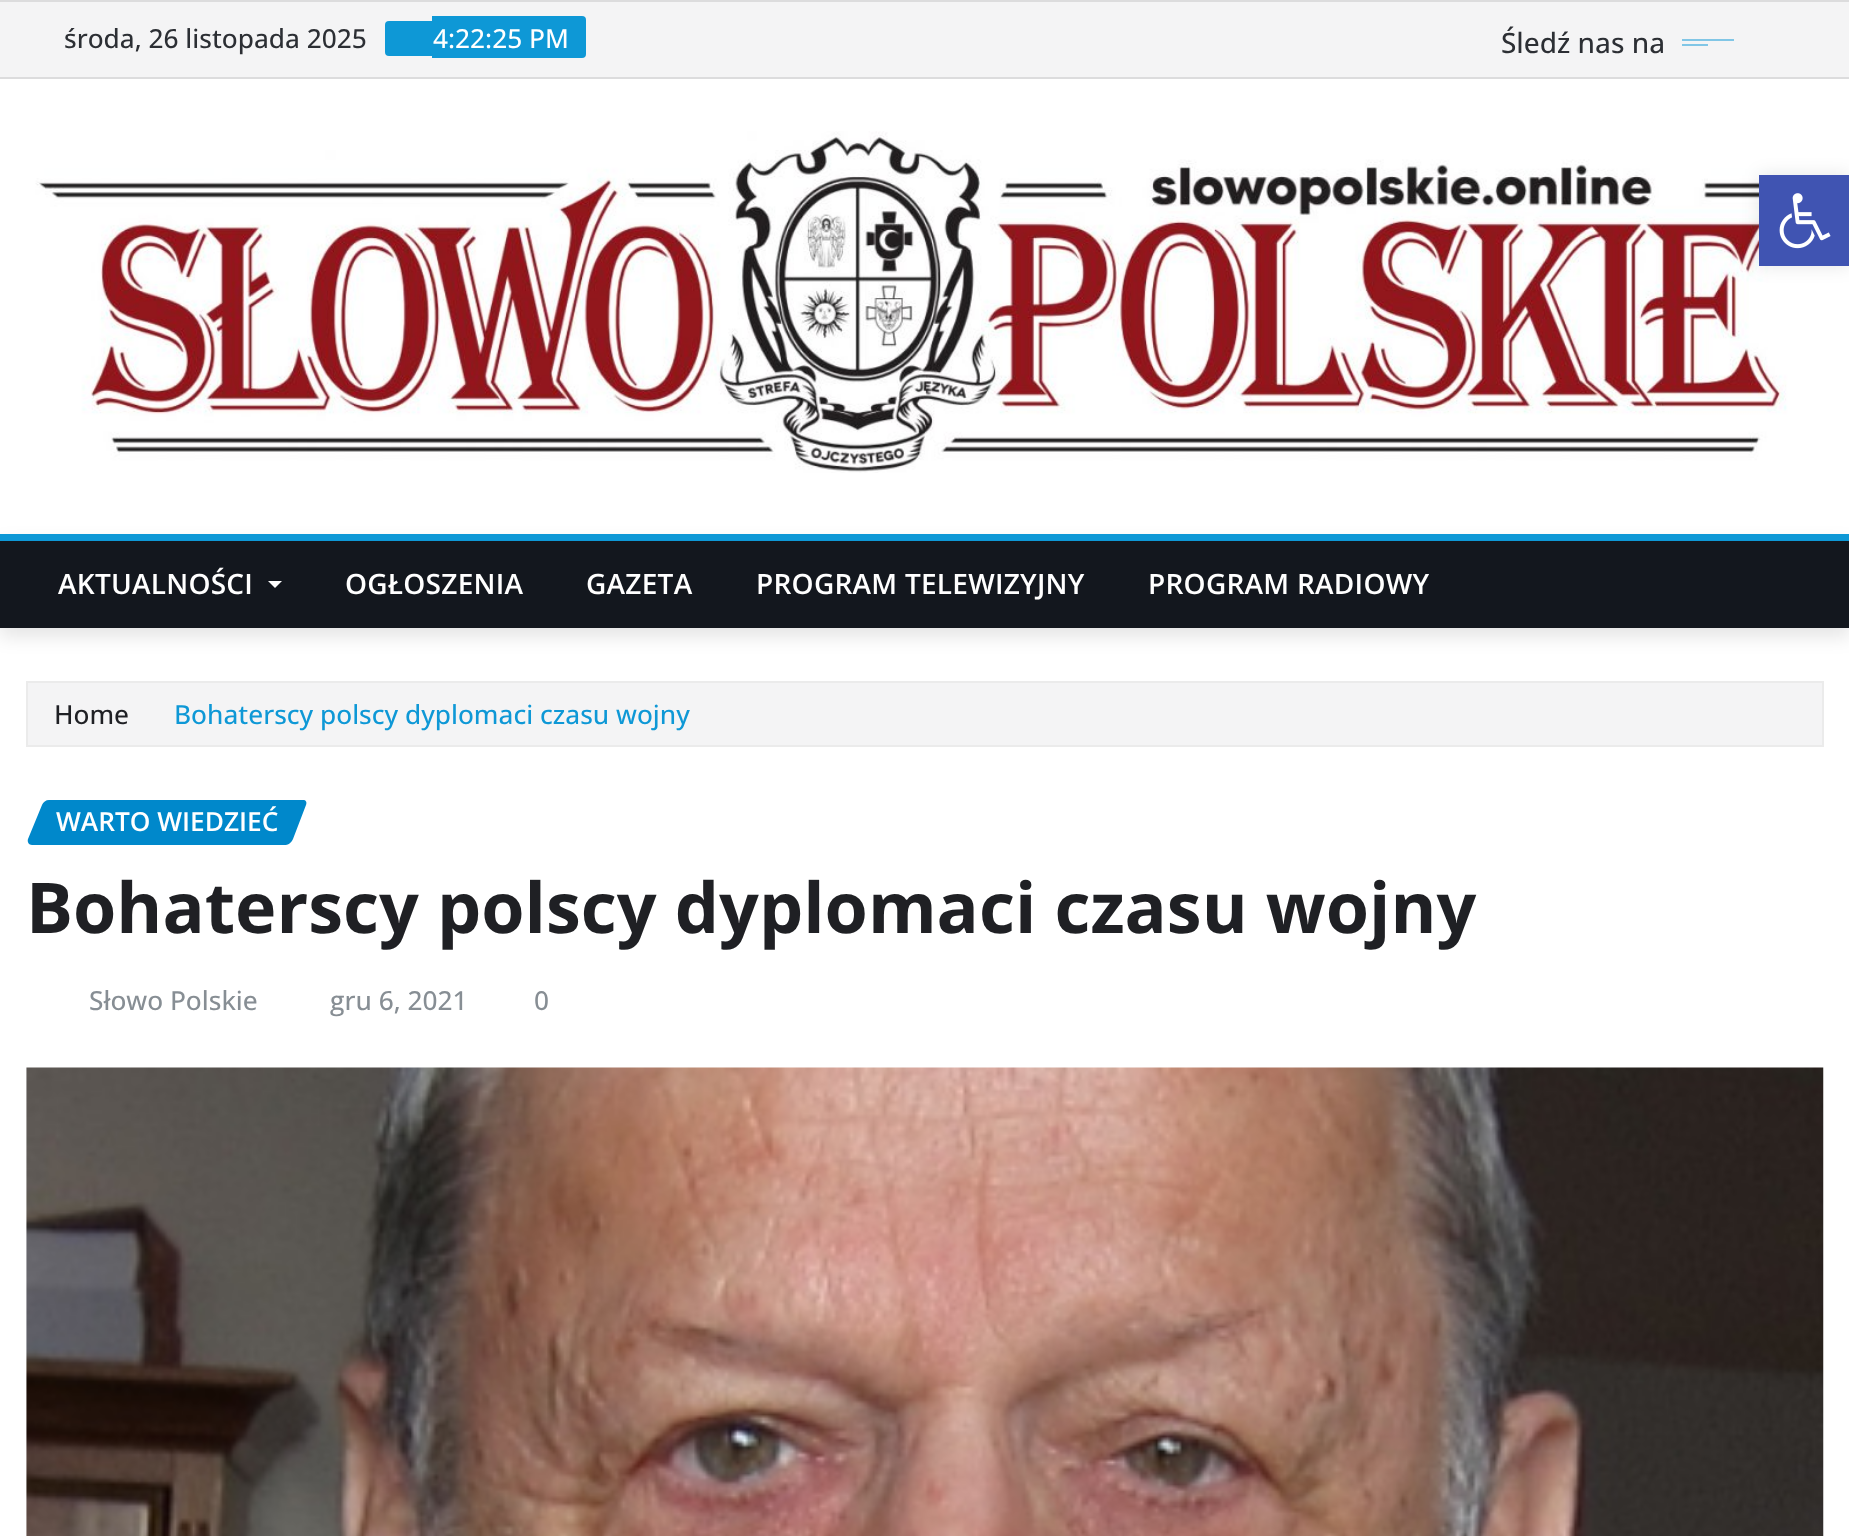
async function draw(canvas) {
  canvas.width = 1849
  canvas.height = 1536
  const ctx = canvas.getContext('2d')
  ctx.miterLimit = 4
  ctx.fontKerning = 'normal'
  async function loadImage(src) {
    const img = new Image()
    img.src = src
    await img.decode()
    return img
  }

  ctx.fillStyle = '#fff'
  ctx.fillRect(0, 0, 1849, 1536)
  ctx.fillStyle = '#f4f4f5'
  ctx.fillRect(0, 2, 1849, 75)
  ctx.fillStyle = '#dcdcdd'
  ctx.fillRect(0, 0, 1849, 2)
  ctx.fillRect(0, 77, 1849, 2)
  ctx.font = '500 26.25px Open Sans'
  ctx.fillStyle = '#2c2f34'
  ctx.fillText('środa, 26 listopada 2025', 64, 48)
  ctx.fillStyle = '#0e98d6'
  ctx.beginPath()
  ctx.roundRect(432, 16, 154, 42, [0, 4, 4, 0])
  ctx.fill()
  ctx.fillStyle = '#fff'
  ctx.fillText('4:22:25 PM', 433, 48)
  ctx.fillStyle = '#0e98d6'
  ctx.beginPath()
  ctx.roundRect(385, 21, 47, 35, [4, 0, 0, 4])
  ctx.fill()
  ctx.font = '500 28px Open Sans'
  ctx.fillStyle = '#2c2f34'
  ctx.fillText('Śledź nas na', 1501, 53)
  ctx.fillStyle = '#81c6e6'
  ctx.fillRect(1682, 39, 52, 2)
  ctx.fillRect(1682, 44, 26, 2)
  ctx.drawImage(await loadImage('image0.png'), 35, 131, 1780, 342)
  ctx.fillStyle = '#0000001a'
  ctx.filter = 'blur(9px)'
  ctx.beginPath()
  ctx.rect(0, 543, 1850, 94)
  ctx.fill()
  ctx.filter = 'none'
  ctx.fillStyle = '#13171e'
  ctx.fillRect(0, 541, 1849, 87)
  ctx.fillStyle = '#0e98d6'
  ctx.fillRect(0, 534, 1849, 7)
  ctx.letterSpacing = '0.25px'
  ctx.font = '600 28px Open Sans'
  ctx.fillStyle = '#fff'
  ctx.fillText('AKTUALNOŚCI', 58, 594)
  ctx.beginPath()
  ctx.moveTo(268, 581)
  ctx.lineTo(282, 581)
  ctx.lineTo(275, 588)
  ctx.closePath()
  ctx.fill()
  ctx.fillText('OGŁOSZENIA', 345, 594)
  ctx.fillText('GAZETA', 586, 594)
  ctx.fillText('PROGRAM TELEWIZYJNY', 756, 594)
  ctx.fillText('PROGRAM RADIOWY', 1148, 594)
  ctx.fillStyle = '#f4f4f5'
  ctx.beginPath()
  ctx.rect(27, 682, 1796, 64)
  ctx.fill()
  ctx.strokeStyle = '#ebebeb'
  ctx.lineWidth = 2
  ctx.stroke()
  ctx.letterSpacing = '0px'
  ctx.font = '500 26.25px Open Sans'
  ctx.fillStyle = '#1f2024'
  ctx.fillText('Home', 54, 724)
  ctx.fillStyle = '#0e98d6'
  ctx.fillText('Bohaterscy polscy dyplomaci czasu wojny', 174, 724)
  ctx.fillStyle = '#0088cb'
  ctx.beginPath()
  ctx.moveTo(49, 800)
  ctx.lineTo(303, 800)
  ctx.bezierCurveTo(306, 800, 307, 802, 306, 805)
  ctx.lineTo(293, 839)
  ctx.bezierCurveTo(292, 842, 288, 845, 286, 845)
  ctx.lineTo(32, 845)
  ctx.bezierCurveTo(29, 845, 27, 842, 28, 839)
  ctx.lineTo(42, 805)
  ctx.bezierCurveTo(43, 802, 46, 800, 49, 800)
  ctx.closePath()
  ctx.fill()
  ctx.font = '600 26.25px Open Sans'
  ctx.fillStyle = '#fff'
  ctx.fillText('WARTO WIEDZIEĆ', 56, 831)
  ctx.font = 'bold 70px Open Sans'
  ctx.fillStyle = '#1f2024'
  ctx.fillText('Bohaterscy polscy dyplomaci czasu wojny', 26, 933)
  ctx.font = '500 26.25px Open Sans'
  ctx.fillStyle = '#878e94'
  ctx.fillText('Słowo Polskie', 89, 1010)
  ctx.fillText('gru 6, 2021', 330, 1010)
  ctx.fillText('0', 534, 1010)
  ctx.drawImage(await loadImage('image1.png'), 26, 1067, 1798, 469)
  ctx.fillStyle = '#0000001a'
  ctx.filter = 'blur(9px)'
  ctx.beginPath()
  ctx.rect(1759, 175, 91, 91)
  ctx.fill()
  ctx.filter = 'none'
  ctx.fillStyle = '#4054b2'
  ctx.fillRect(1759, 175, 90, 91)
  ctx.drawImage(await loadImage('image2.png'), 1779, 193, 52, 56)
}

draw(document.querySelector('canvas'))
